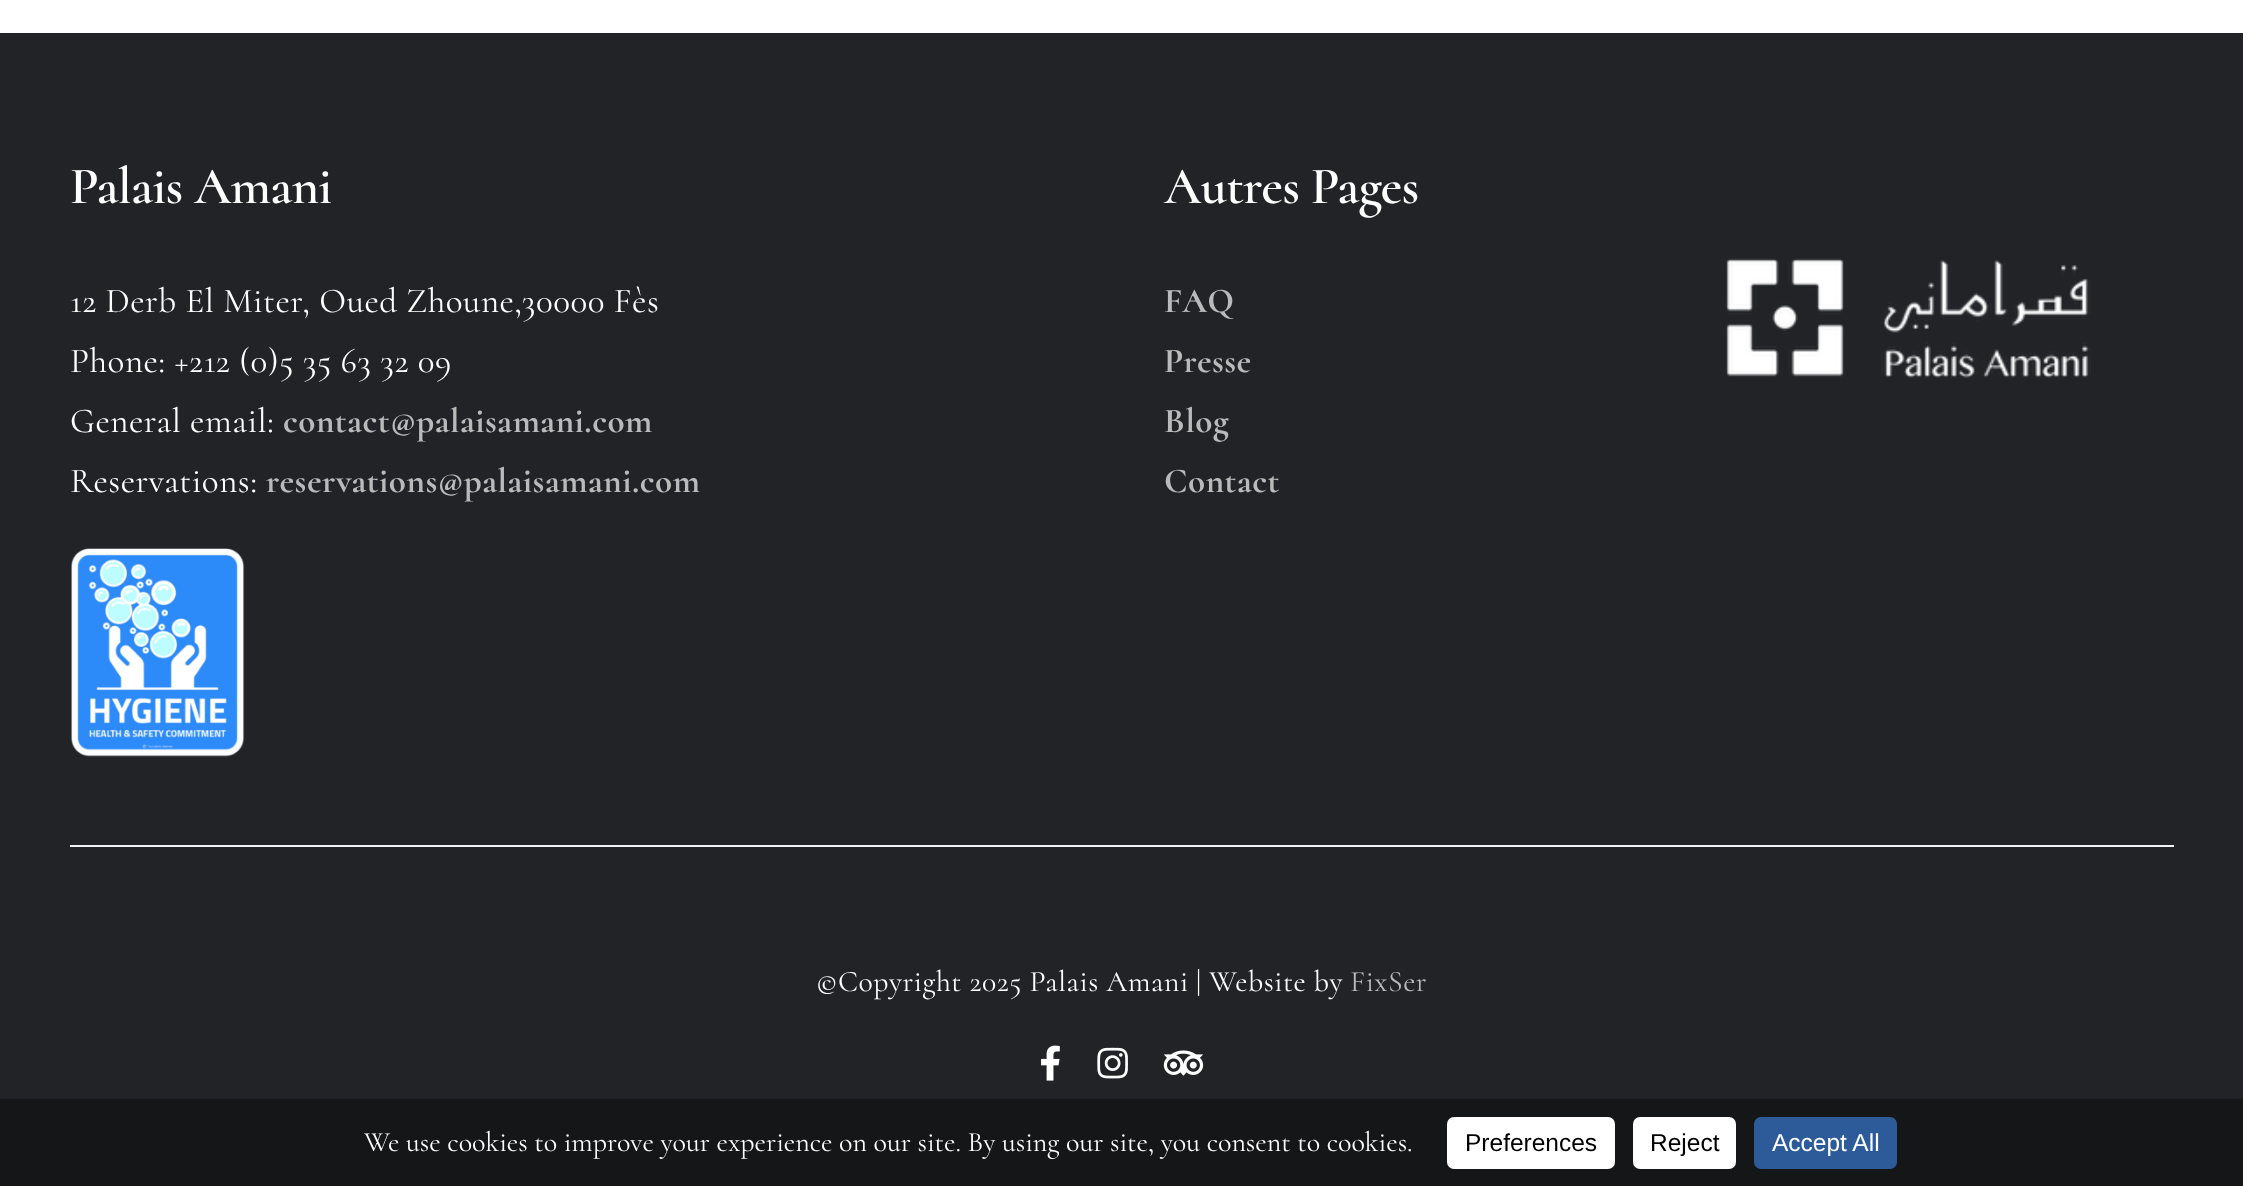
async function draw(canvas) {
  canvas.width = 2243
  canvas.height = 1186
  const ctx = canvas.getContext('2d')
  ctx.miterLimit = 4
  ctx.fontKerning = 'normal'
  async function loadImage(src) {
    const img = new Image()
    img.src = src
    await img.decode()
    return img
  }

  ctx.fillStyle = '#fff'
  ctx.fillRect(0, 0, 2243, 1186)
  ctx.fillStyle = '#212326'
  ctx.fillRect(0, 33, 2243, 1066)
  ctx.letterSpacing = '-0.75px'
  ctx.font = '600 52.5px Cormorant'
  ctx.fillStyle = '#fff'
  ctx.fillText('Palais Amani', 70, 203)
  ctx.letterSpacing = '0.55px'
  ctx.font = '35px Cormorant'
  ctx.fillText('12 Derb El Miter, Oued Zhoune,30000 Fès', 70, 312)
  ctx.fillText('Phone: +212 (0)5 35 63 32 09', 70, 372)
  ctx.fillText('General email:', 70, 432)
  ctx.font = 'bold 35px Cormorant'
  ctx.fillStyle = '#bababa'
  ctx.fillText('contact@palaisamani.com', 283, 432)
  ctx.font = '35px Cormorant'
  ctx.fillStyle = '#fff'
  ctx.fillText('Reservations:', 70, 492)
  ctx.font = 'bold 35px Cormorant'
  ctx.fillStyle = '#bababa'
  ctx.fillText('reservations@palaisamani.com', 266, 492)
  ctx.drawImage(await loadImage('image0.png'), 71, 548, 174, 209)
  ctx.letterSpacing = '-0.75px'
  ctx.font = '600 52.5px Cormorant'
  ctx.fillStyle = '#fff'
  ctx.fillText('Autres Pages', 1164, 203)
  ctx.letterSpacing = '0.55px'
  ctx.font = 'bold 35px Cormorant'
  ctx.fillStyle = '#bababa'
  ctx.fillText('FAQ', 1164, 312)
  ctx.fillText('Presse', 1164, 372)
  ctx.fillText('Blog', 1164, 432)
  ctx.fillText('Contact', 1164, 492)
  ctx.drawImage(await loadImage('image1.png'), 1726, 258, 365, 120)
  ctx.fillStyle = '#f2f3f5'
  ctx.fillRect(70, 845, 2104, 2)
  ctx.font = '29.75px Cormorant'
  ctx.fillStyle = '#fff'
  ctx.fillText('©Copyright 2025 Palais Amani | Website by', 816, 991)
  ctx.fillStyle = '#bababa'
  ctx.fillText('FixSer', 1350, 991)
  ctx.drawImage(await loadImage('image2.png'), 1041, 1045, 19, 36)
  ctx.drawImage(await loadImage('image3.png'), 1097, 1047, 31, 32)
  ctx.drawImage(await loadImage('image4.png'), 1163, 1050, 41, 26)
  ctx.fillStyle = '#141617'
  ctx.fillRect(0, 1099, 2243, 87)
  ctx.letterSpacing = '0px'
  ctx.font = '28px Cormorant'
  ctx.fillStyle = '#fff'
  ctx.fillText('We use cookies to improve your experience on our site. By using our site, you consent to cookies.', 364, 1151)
  ctx.beginPath()
  ctx.roundRect(1447, 1117, 168, 52, 7)
  ctx.fill()
  ctx.font = '24.5px Liberation Sans'
  ctx.fillStyle = '#000'
  ctx.fillText('Preferences', 1465, 1151)
  ctx.fillStyle = '#fff'
  ctx.beginPath()
  ctx.roundRect(1633, 1117, 103, 52, 7)
  ctx.fill()
  ctx.fillStyle = '#000'
  ctx.fillText('Reject', 1650, 1151)
  ctx.fillStyle = '#2d5b99'
  ctx.beginPath()
  ctx.roundRect(1754, 1117, 143, 52, 7)
  ctx.fill()
  ctx.fillStyle = '#fff'
  ctx.fillText('Accept All', 1772, 1151)
}

draw(document.querySelector('canvas'))
